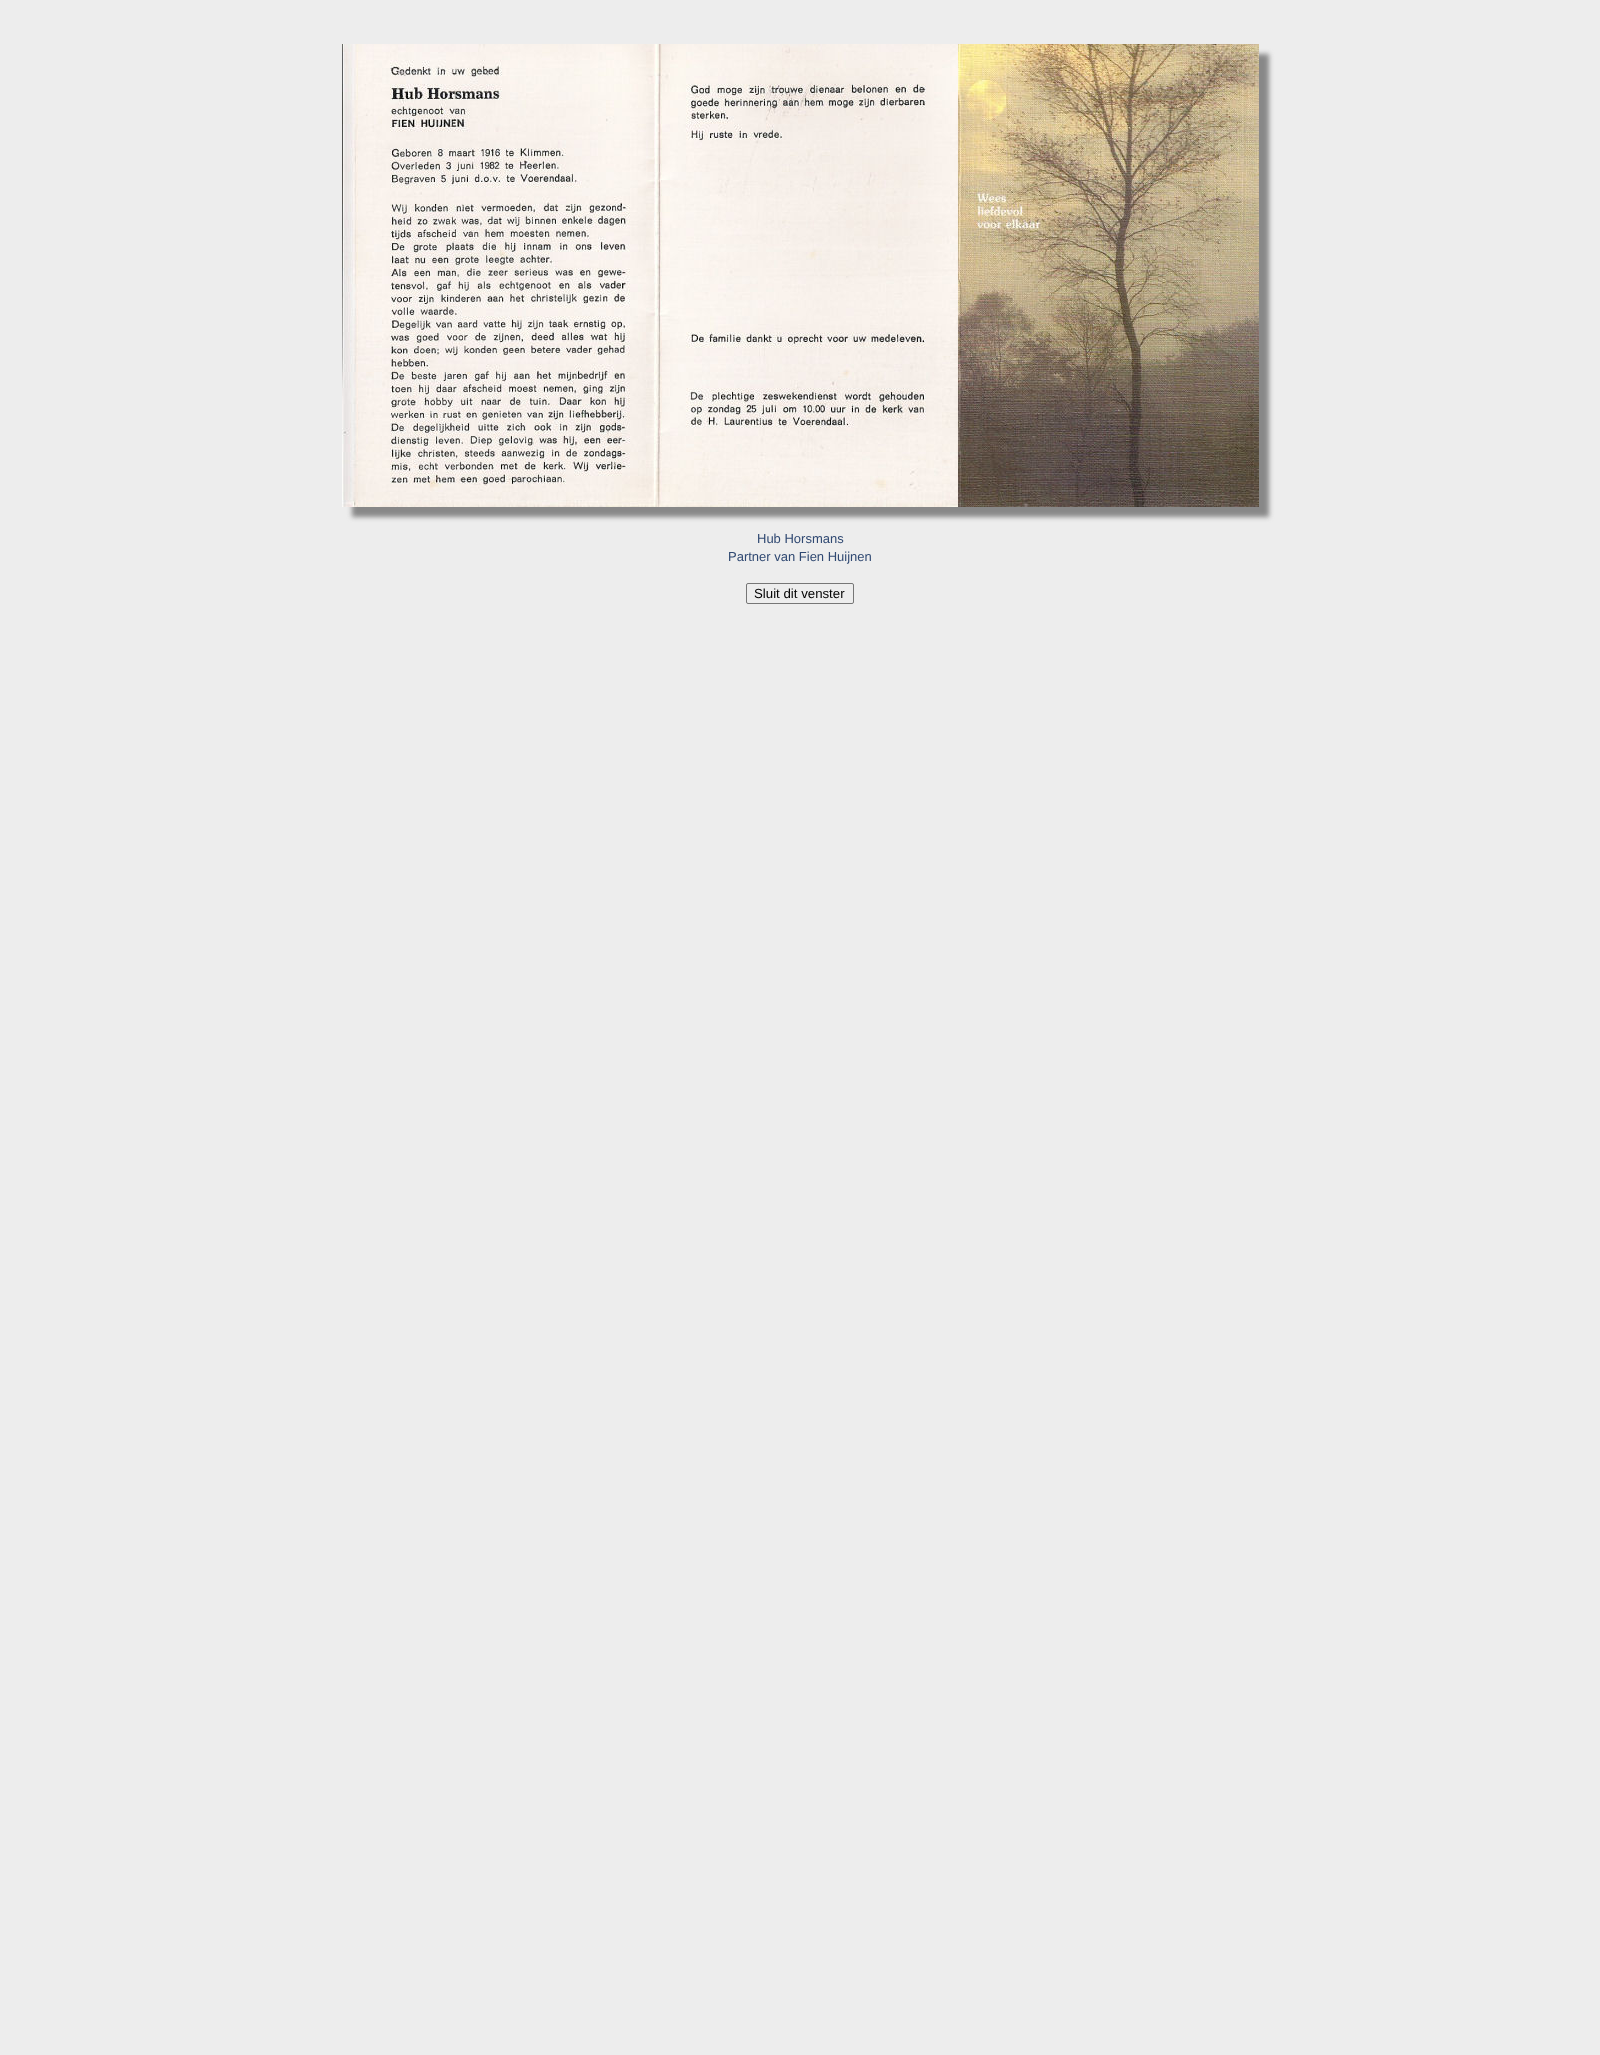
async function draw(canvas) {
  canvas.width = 1600
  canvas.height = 2055
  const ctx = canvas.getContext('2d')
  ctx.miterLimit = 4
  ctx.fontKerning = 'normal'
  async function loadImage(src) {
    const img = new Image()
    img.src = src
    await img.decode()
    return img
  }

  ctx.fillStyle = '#ededed'
  ctx.fillRect(0, 0, 1600, 2055)
  ctx.fillStyle = '#888'
  ctx.filter = 'blur(2.5px)'
  ctx.beginPath()
  ctx.rect(352, 54, 917, 463)
  ctx.fill()
  ctx.filter = 'none'
  ctx.drawImage(await loadImage('image0.png'), 342, 44, 917, 463)
  ctx.font = '13px Liberation Sans'
  ctx.fillStyle = '#304972'
  ctx.fillText('Hub Horsmans', 757, 543)
  ctx.fillText('Partner van Fien Huijnen', 728, 561)
  ctx.beginPath()
  ctx.roundRect(746.5, 583.5, 107, 20, 1.5)
  ctx.strokeStyle = '#767676'
  ctx.stroke()
  ctx.font = '13.25px Liberation Sans'
  ctx.fillStyle = '#000'
  ctx.fillText('Sluit dit venster', 754, 598)
}

draw(document.querySelector('canvas'))
